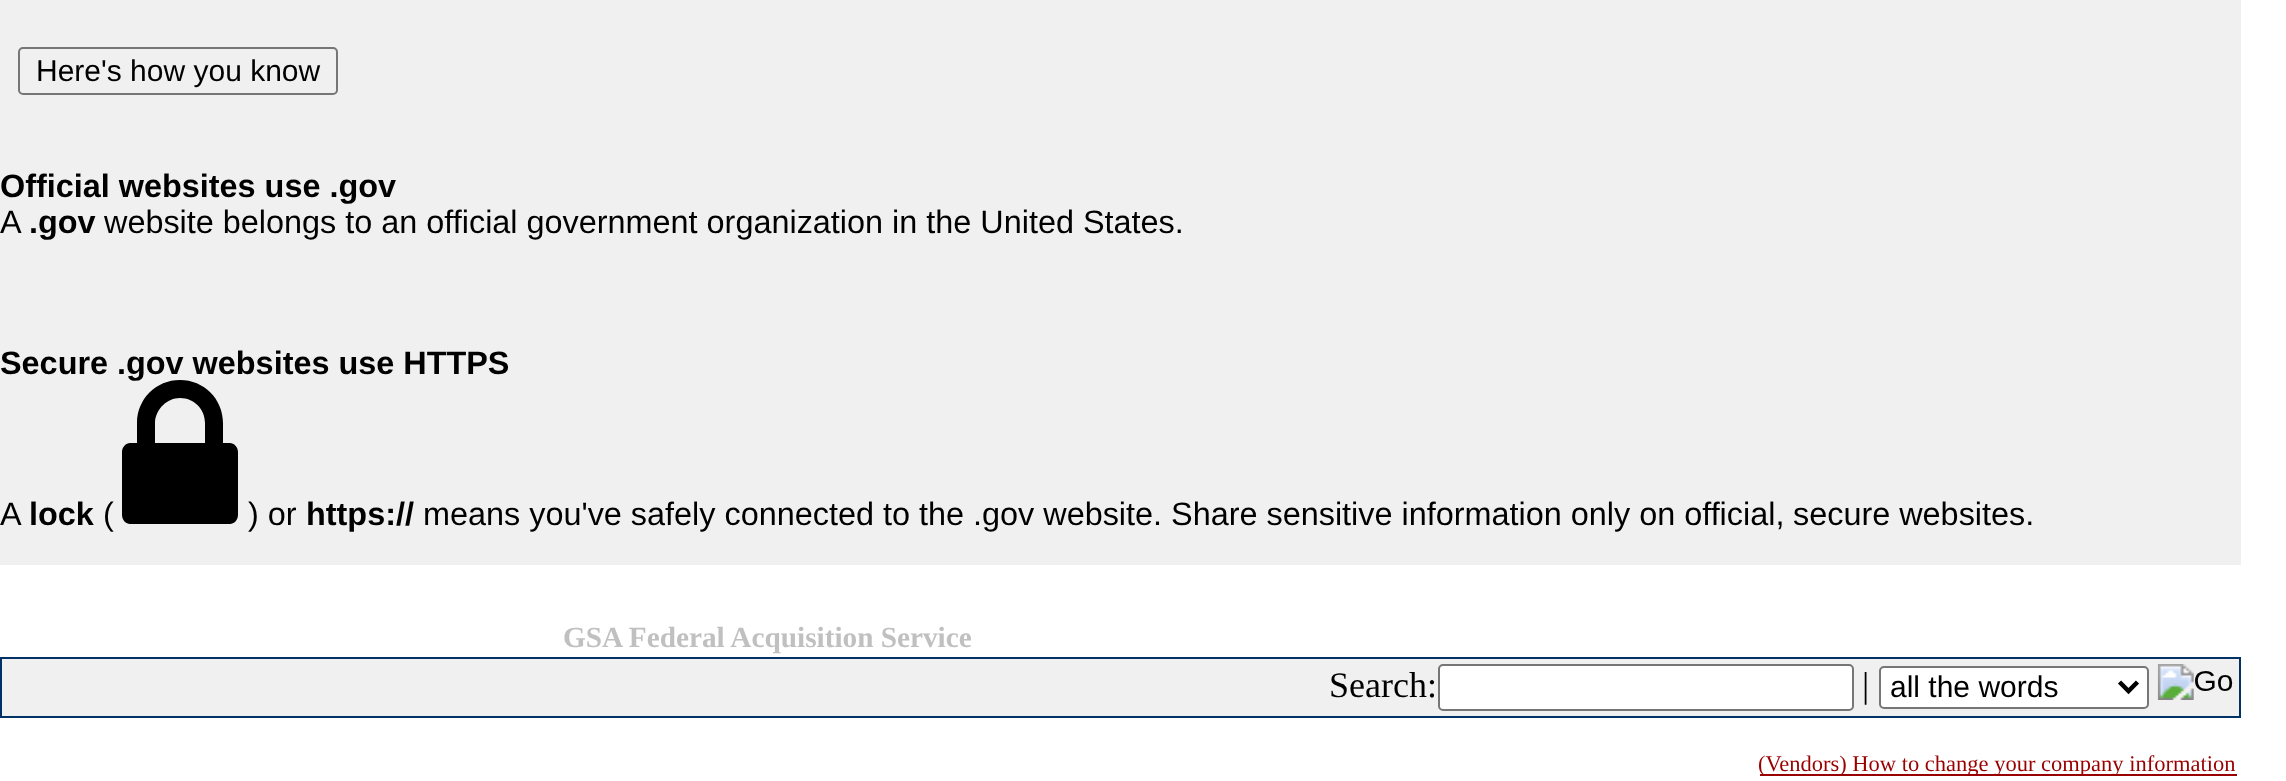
async function draw(canvas) {
  canvas.width = 2286
  canvas.height = 781
  const ctx = canvas.getContext('2d')
  ctx.miterLimit = 4
  ctx.fontKerning = 'normal'
  async function loadImage(src) {
    const img = new Image()
    img.src = src
    await img.decode()
    return img
  }

  ctx.fillStyle = '#fff'
  ctx.fillRect(0, 0, 2286, 781)
  ctx.fillStyle = '#f0f0f0'
  ctx.fillRect(0, 0, 2241, 565)
  ctx.beginPath()
  ctx.roundRect(19, 48, 318, 46, 4)
  ctx.strokeStyle = '#767676'
  ctx.lineWidth = 2
  ctx.stroke()
  ctx.font = '30px Liberation Sans'
  ctx.fillStyle = '#000'
  ctx.fillText('Here\'s how you know', 36, 81)
  ctx.font = 'bold 32.4px Liberation Sans'
  ctx.fillText('Official websites use .gov', 0, 197)
  ctx.font = '32.4px Liberation Sans'
  ctx.fillText('A', 0, 233)
  ctx.font = 'bold 32.4px Liberation Sans'
  ctx.fillText('.gov', 29, 233)
  ctx.font = '32.4px Liberation Sans'
  ctx.fillText('website belongs to an official government organization in the United States.', 104, 233)
  ctx.font = 'bold 32.4px Liberation Sans'
  ctx.fillText('Secure .gov websites use HTTPS', 0, 374)
  ctx.font = '32.4px Liberation Sans'
  ctx.fillText('A', 0, 525)
  ctx.font = 'bold 32.4px Liberation Sans'
  ctx.fillText('lock', 29, 525)
  ctx.font = '32.4px Liberation Sans'
  ctx.fillText('(', 103, 525)
  ctx.beginPath()
  ctx.moveTo(180, 380)
  ctx.bezierCurveTo(204, 380, 223, 399, 223, 423)
  ctx.lineTo(223, 443)
  ctx.lineTo(230, 443)
  ctx.bezierCurveTo(234, 443, 238, 447, 238, 452)
  ctx.lineTo(238, 515)
  ctx.bezierCurveTo(238, 520, 234, 524, 230, 524)
  ctx.lineTo(130, 524)
  ctx.bezierCurveTo(126, 524, 122, 520, 122, 515)
  ctx.lineTo(122, 452)
  ctx.bezierCurveTo(122, 447, 126, 443, 130, 443)
  ctx.lineTo(137, 443)
  ctx.lineTo(137, 423)
  ctx.bezierCurveTo(137, 399, 156, 380, 180, 380)
  ctx.closePath()
  ctx.moveTo(180, 398)
  ctx.bezierCurveTo(167, 398, 156, 409, 155, 422)
  ctx.lineTo(155, 443)
  ctx.lineTo(205, 443)
  ctx.lineTo(205, 423)
  ctx.bezierCurveTo(205, 409, 194, 398, 180, 398)
  ctx.closePath()
  ctx.fill('evenodd')
  ctx.fillText(') or', 248, 525)
  ctx.font = 'bold 32.4px Liberation Sans'
  ctx.fillText('https://', 306, 525)
  ctx.font = '32.4px Liberation Sans'
  ctx.fillText('means you\'ve safely connected to', 423, 525)
  ctx.fillText('the .gov website. Share sensitive information only on official,', 919, 525)
  ctx.fillText('secure websites.', 1793, 525)
  ctx.font = 'bold 29.25px Liberation Serif'
  ctx.fillStyle = '#c0c0c0'
  ctx.fillText('GSA Federal Acquisition Service', 563, 647)
  ctx.fillStyle = '#003265'
  ctx.fillRect(0, 657, 2241, 61)
  ctx.fillStyle = '#f0f0f0'
  ctx.fillRect(2, 659, 2237, 57)
  ctx.font = '36px Liberation Serif'
  ctx.fillStyle = '#000'
  ctx.fillText('Search:', 1329, 697)
  ctx.fillStyle = '#fff'
  ctx.beginPath()
  ctx.roundRect(1439, 665, 414, 45, 4)
  ctx.fill()
  ctx.stroke()
  ctx.fillStyle = '#000'
  ctx.fillText('|', 1862, 697)
  ctx.fillStyle = '#fff'
  ctx.beginPath()
  ctx.roundRect(1880, 667, 268, 41, 4)
  ctx.fill()
  ctx.stroke()
  ctx.beginPath()
  ctx.moveTo(2119.5, 682)
  ctx.lineTo(2128.5, 691)
  ctx.lineTo(2137.5, 682)
  ctx.strokeStyle = '#000'
  ctx.lineWidth = 4.5
  ctx.stroke()
  ctx.font = '30px Liberation Sans'
  ctx.fillStyle = '#000'
  ctx.fillText('all the words', 1890, 697)
  ctx.drawImage(await loadImage('image0.png'), 2157, 664, 76, 36)
  ctx.fillStyle = '#900'
  ctx.fillRect(1760, 774, 477, 2)
  ctx.font = '22.5px Liberation Serif'
  ctx.fillText('(Vendors) How to change your company information', 1758, 771)
}

draw(document.querySelector('canvas'))
